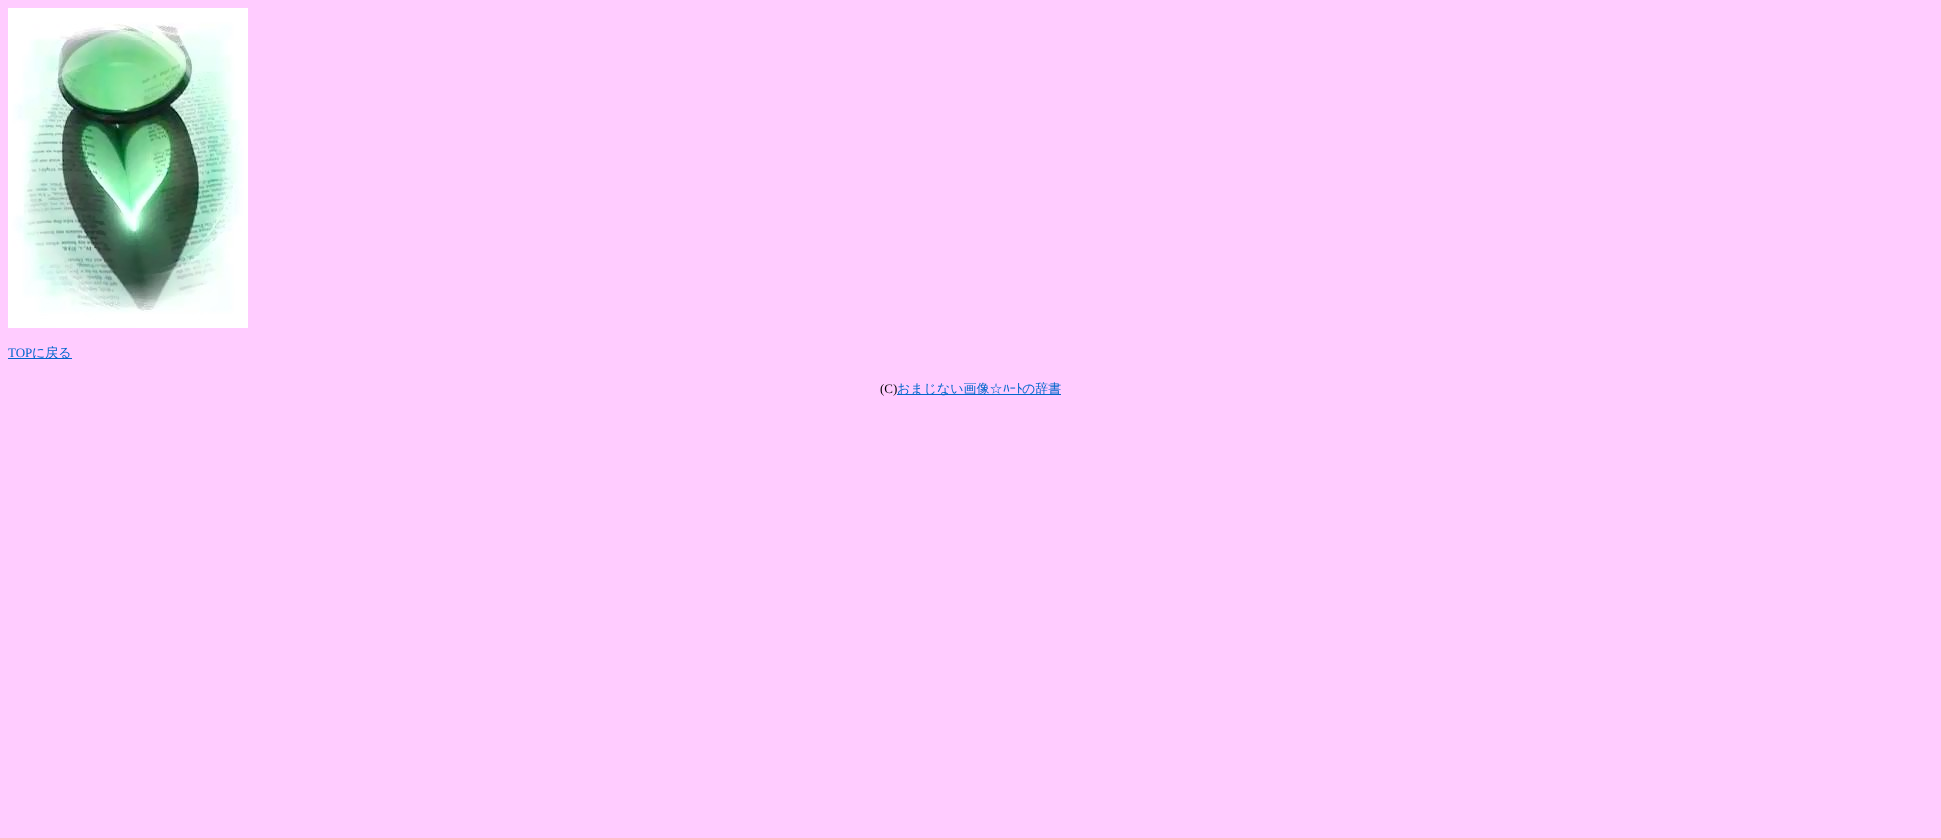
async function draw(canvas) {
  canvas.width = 1941
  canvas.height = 838
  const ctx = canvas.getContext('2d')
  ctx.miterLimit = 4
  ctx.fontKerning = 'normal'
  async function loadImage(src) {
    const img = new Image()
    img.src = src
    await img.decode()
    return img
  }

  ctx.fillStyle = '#fcf'
  ctx.fillRect(0, 0, 1941, 838)
  ctx.drawImage(await loadImage('image0.png'), 8, 8, 240, 320)
  ctx.font = '13px Liberation Serif'
  ctx.fillStyle = '#06c'
  ctx.fillText('TOP', 8, 357)
  ctx.fillRect(8, 358, 64, 1)
  ctx.font = '500 13px WenQuanYi Zen Hei'
  ctx.fillText('に戻る', 32, 357)
  ctx.font = '13px Liberation Serif'
  ctx.fillStyle = '#000'
  ctx.fillText('(C)', 880, 393)
  ctx.fillStyle = '#06c'
  ctx.fillRect(897, 394, 164, 1)
  ctx.font = '500 13px WenQuanYi Zen Hei'
  ctx.fillText('おまじない画像☆', 897, 393)
  ctx.font = '13px IPAGothic'
  ctx.fillText('ﾊｰﾄ', 1003, 393)
  ctx.font = '500 13px WenQuanYi Zen Hei'
  ctx.fillText('の辞書', 1022, 393)
}

draw(document.querySelector('canvas'))
